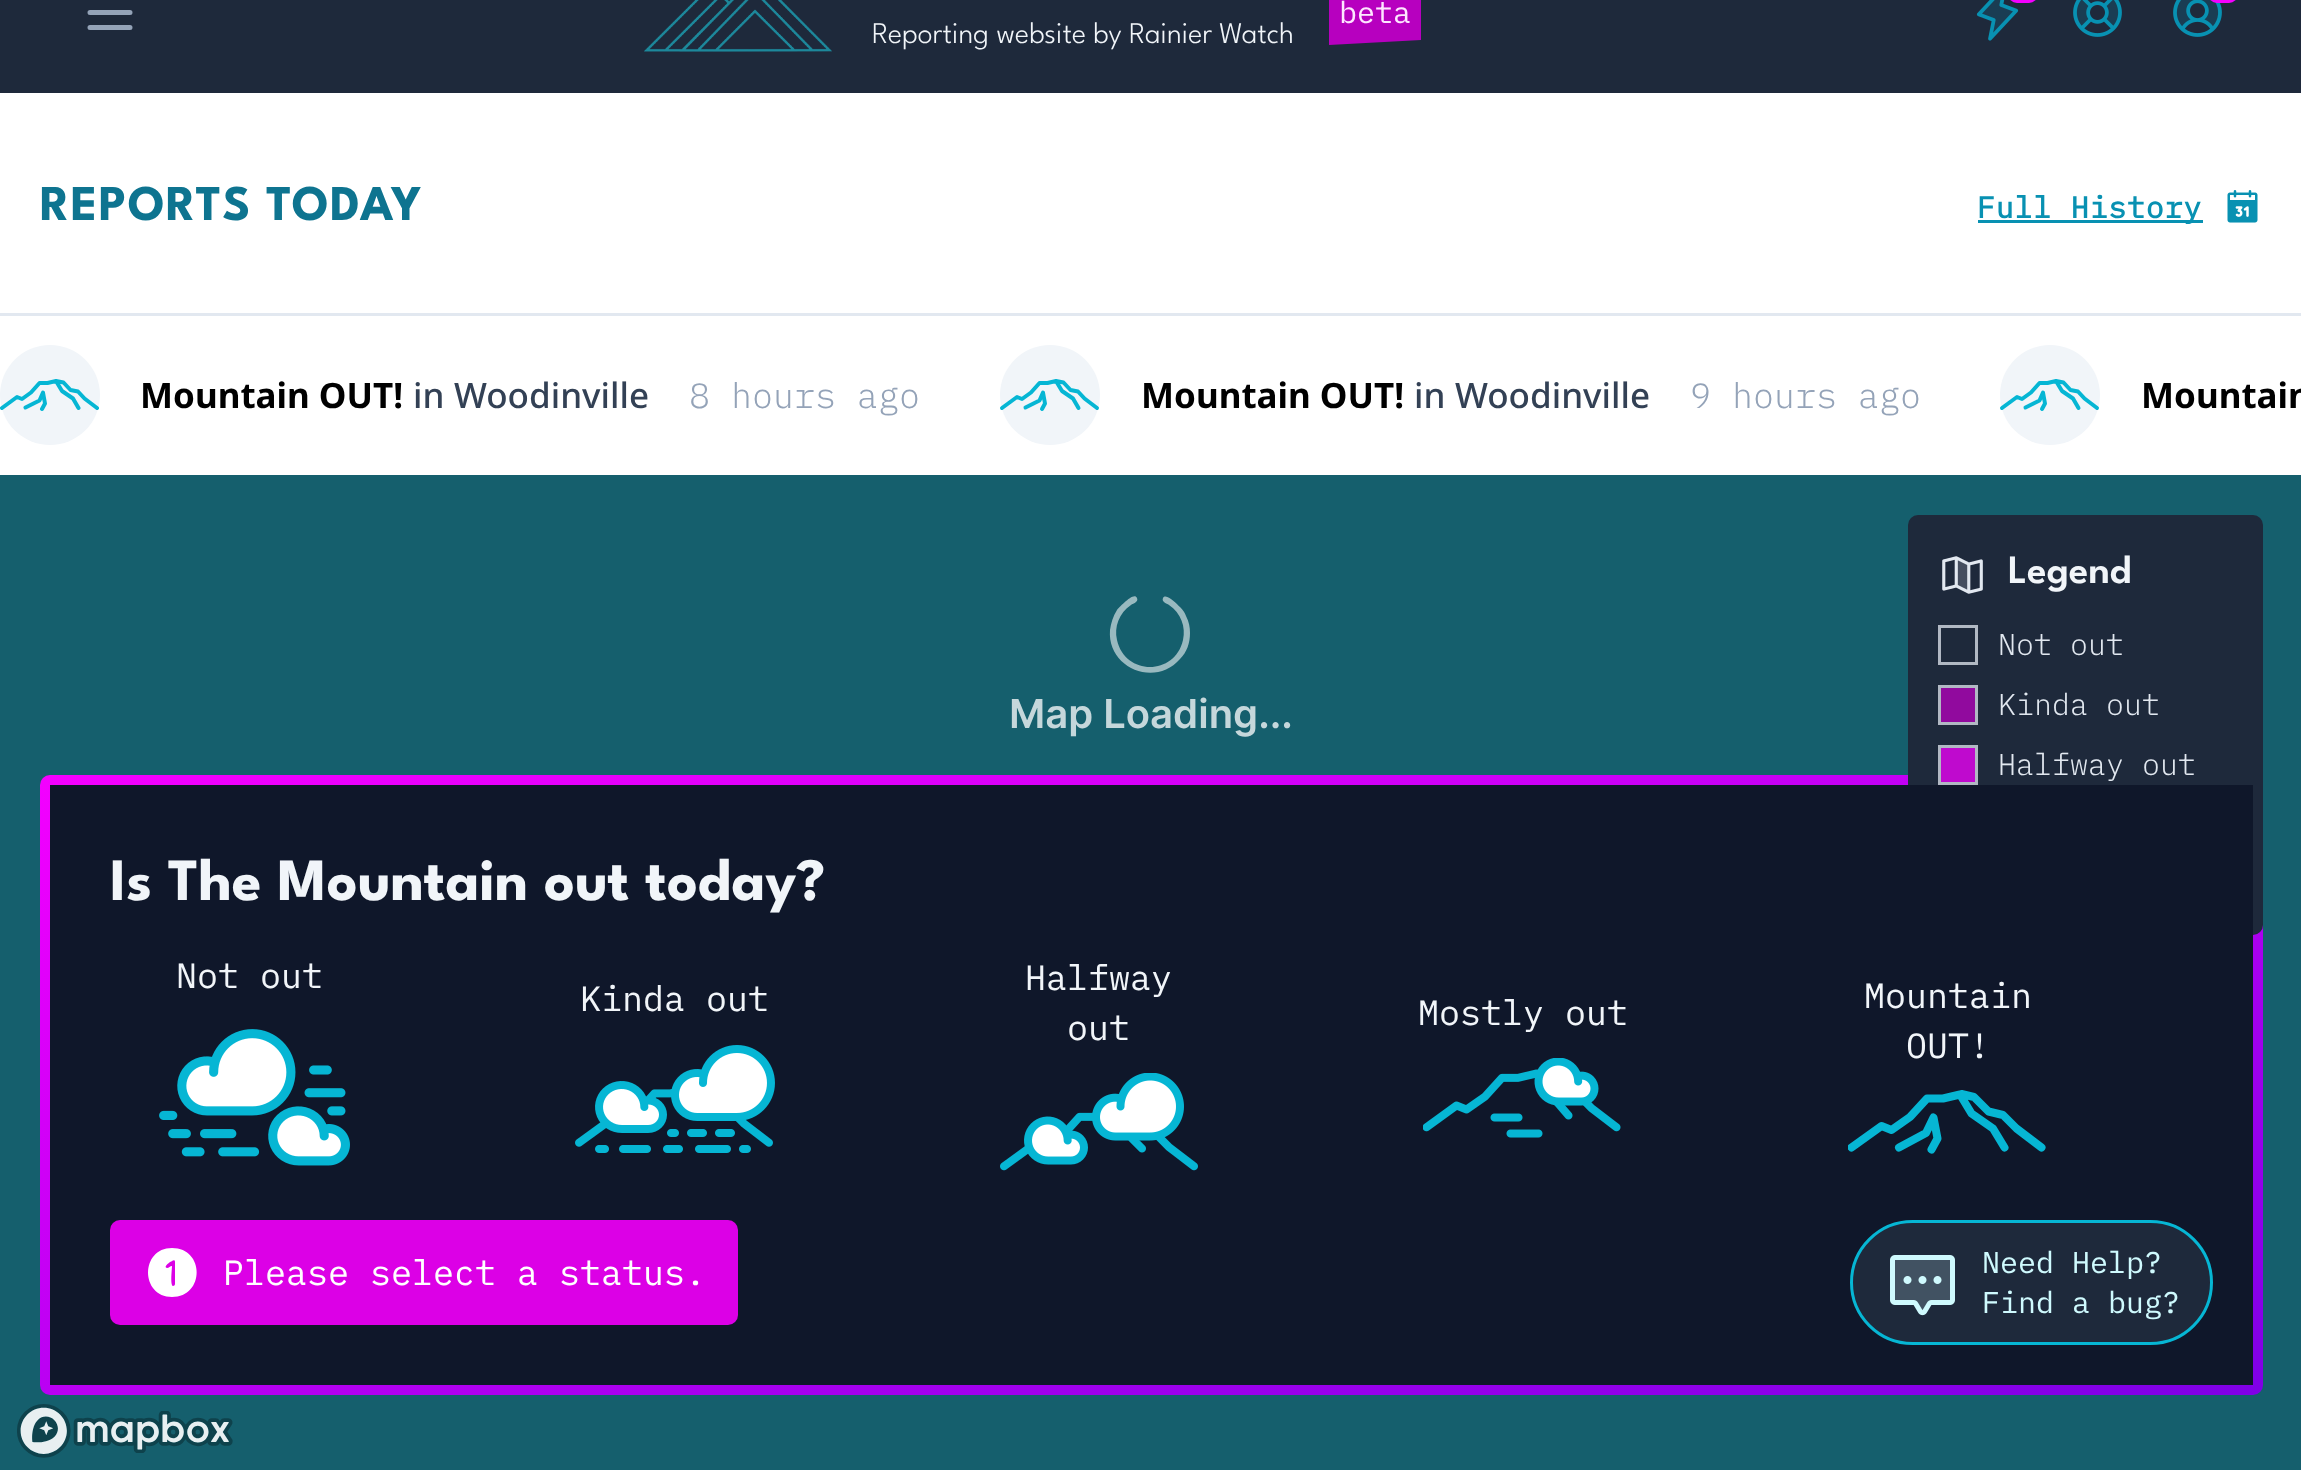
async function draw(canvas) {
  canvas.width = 2301
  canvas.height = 1470
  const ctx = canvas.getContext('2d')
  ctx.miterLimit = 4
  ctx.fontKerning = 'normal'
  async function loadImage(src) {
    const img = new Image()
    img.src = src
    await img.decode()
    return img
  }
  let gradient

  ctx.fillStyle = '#1e293b'
  ctx.fillRect(0, 0, 2301, 1470)
  ctx.beginPath()
  ctx.moveTo(90, -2.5)
  ctx.lineTo(130, -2.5)
  ctx.moveTo(90, 12.5)
  ctx.lineTo(130, 12.5)
  ctx.moveTo(90, 27.5)
  ctx.lineTo(130, 27.5)
  ctx.strokeStyle = '#94a3b8'
  ctx.lineWidth = 5
  ctx.lineCap = 'round'
  ctx.lineJoin = 'round'
  ctx.stroke()
  ctx.drawImage(await loadImage('image0.png'), 644, 0, 188, 52)
  ctx.fillStyle = '#b700bf'
  ctx.beginPath()
  ctx.moveTo(1329, -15)
  ctx.lineTo(1421, -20)
  ctx.lineTo(1421, 40)
  ctx.lineTo(1329, 45)
  ctx.closePath()
  ctx.fill()
  ctx.font = '30px IBM Plex Mono'
  ctx.fillStyle = '#fee6ff'
  ctx.fillText('beta', 1339, 23)
  ctx.font = '100 30px "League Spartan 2"'
  ctx.fillStyle = '#f1f5f9'
  ctx.fillText('Reporting website by Rainier Watch', 872, 43)
  ctx.drawImage(await loadImage('image1.png'), 1976, 0, 43, 41)
  ctx.fillStyle = '#f400ff'
  ctx.beginPath()
  ctx.roundRect(2008, -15, 30, 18, 15)
  ctx.fill()
  ctx.drawImage(await loadImage('image2.png'), 2073, 0, 49, 37)
  ctx.drawImage(await loadImage('image3.png'), 2173, 0, 49, 37)
  ctx.beginPath()
  ctx.roundRect(2208, -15, 30, 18, 15)
  ctx.fill()
  ctx.fillStyle = '#fff'
  ctx.fillRect(0, 93, 2301, 382)
  ctx.fillStyle = '#e2e8f0'
  ctx.fillRect(0, 313, 2301, 3)
  ctx.letterSpacing = '1.25px'
  ctx.font = '100 50px League Spartan'
  ctx.fillStyle = '#0e7490'
  ctx.fillText('REPORTS TODAY', 40, 220)
  ctx.fillStyle = '#0891b2'
  ctx.fillRect(1978, 220, 225, 3)
  ctx.letterSpacing = '0.75px'
  ctx.font = 'bold 30px IBM Plex Mono'
  ctx.fillText('Full History', 1977, 218)
  ctx.drawImage(await loadImage('image4.png'), 2227, 190, 31, 33)
  ctx.fillStyle = '#f1f5f9'
  ctx.beginPath()
  ctx.arc(50, 395, 50, 0, 2 * Math.PI)
  ctx.fill()
  ctx.beginPath()
  ctx.moveTo(2, 408)
  ctx.lineTo(17, 397)
  ctx.lineTo(22, 399)
  ctx.lineTo(31, 392.5)
  ctx.lineTo(39.5, 383)
  ctx.lineTo(47.5, 383)
  ctx.lineTo(56, 381)
  ctx.moveTo(97, 408)
  ctx.lineTo(84.5, 398.5)
  ctx.lineTo(78, 391.5)
  ctx.lineTo(70.5, 390)
  ctx.lineTo(63.5, 382.5)
  ctx.lineTo(56, 381)
  ctx.moveTo(78.5, 408)
  ctx.lineTo(73, 398.5)
  ctx.lineTo(62, 391)
  ctx.lineTo(56, 381)
  ctx.moveTo(25.5, 407.5)
  ctx.lineTo(39.5, 400.5)
  ctx.lineTo(43, 392.5)
  ctx.lineTo(45, 403.5)
  ctx.lineTo(42, 409)
  ctx.strokeStyle = '#06b6d4'
  ctx.lineWidth = 4
  ctx.stroke()
  ctx.letterSpacing = '0px'
  ctx.font = 'bold 35px Noto Sans'
  ctx.fillStyle = '#000'
  ctx.fillText('Mountain OUT!', 140, 408)
  ctx.font = '500 35px Noto Sans'
  ctx.fillStyle = '#334155'
  ctx.fillText('in', 413, 408)
  ctx.fillText('Woodinville', 454, 408)
  ctx.font = '300 35px IBM Plex Mono'
  ctx.fillStyle = '#94a3b8'
  ctx.fillText('8 hours ago', 689, 408)
  ctx.fillStyle = '#f1f5f9'
  ctx.beginPath()
  ctx.arc(1050, 395, 50, 0, 2 * Math.PI)
  ctx.fill()
  ctx.beginPath()
  ctx.moveTo(1002, 408)
  ctx.lineTo(1017, 397)
  ctx.lineTo(1022, 399)
  ctx.lineTo(1031, 392.5)
  ctx.lineTo(1039.5, 383)
  ctx.lineTo(1047.5, 383)
  ctx.lineTo(1056, 381)
  ctx.moveTo(1097, 408)
  ctx.lineTo(1084.5, 398.5)
  ctx.lineTo(1078, 391.5)
  ctx.lineTo(1070.5, 390)
  ctx.lineTo(1063.5, 382.5)
  ctx.lineTo(1056, 381)
  ctx.moveTo(1078.5, 408)
  ctx.lineTo(1073, 398.5)
  ctx.lineTo(1062, 391)
  ctx.lineTo(1056, 381)
  ctx.moveTo(1025.5, 407.5)
  ctx.lineTo(1039.5, 400.5)
  ctx.lineTo(1043, 392.5)
  ctx.lineTo(1045, 403.5)
  ctx.lineTo(1042, 409)
  ctx.stroke()
  ctx.font = 'bold 35px Noto Sans'
  ctx.fillStyle = '#000'
  ctx.fillText('Mountain OUT!', 1141, 408)
  ctx.font = '500 35px Noto Sans'
  ctx.fillStyle = '#334155'
  ctx.fillText('in', 1414, 408)
  ctx.fillText('Woodinville', 1455, 408)
  ctx.font = '300 35px IBM Plex Mono'
  ctx.fillStyle = '#94a3b8'
  ctx.fillText('9 hours ago', 1690, 408)
  ctx.fillStyle = '#f1f5f9'
  ctx.beginPath()
  ctx.arc(2050, 395, 50, 0, 2 * Math.PI)
  ctx.fill()
  ctx.beginPath()
  ctx.moveTo(2002, 408)
  ctx.lineTo(2017, 397)
  ctx.lineTo(2022, 399)
  ctx.lineTo(2031, 392.5)
  ctx.lineTo(2039.5, 383)
  ctx.lineTo(2047.5, 383)
  ctx.lineTo(2056, 381)
  ctx.moveTo(2097, 408)
  ctx.lineTo(2084.5, 398.5)
  ctx.lineTo(2078, 391.5)
  ctx.lineTo(2070.5, 390)
  ctx.lineTo(2063.5, 382.5)
  ctx.lineTo(2056, 381)
  ctx.moveTo(2078.5, 408)
  ctx.lineTo(2073, 398.5)
  ctx.lineTo(2062, 391)
  ctx.lineTo(2056, 381)
  ctx.moveTo(2025.5, 407.5)
  ctx.lineTo(2039.5, 400.5)
  ctx.lineTo(2043, 392.5)
  ctx.lineTo(2045, 403.5)
  ctx.lineTo(2042, 409)
  ctx.stroke()
  ctx.font = 'bold 35px Noto Sans'
  ctx.fillStyle = '#000'
  ctx.fillText('Mountain', 2141, 408)
  ctx.fillStyle = '#155f6d'
  ctx.fillRect(0, 475, 2301, 995)
  ctx.fillStyle = '#99b9bf'
  ctx.beginPath()
  ctx.moveTo(1190, 633)
  ctx.bezierCurveTo(1190, 643, 1187, 652, 1180, 659)
  ctx.bezierCurveTo(1155, 688, 1107, 668, 1110, 630)
  ctx.bezierCurveTo(1111, 623, 1113, 616, 1117, 610)
  ctx.bezierCurveTo(1119, 608, 1134, 591, 1137, 598)
  ctx.bezierCurveTo(1139, 602, 1132, 604, 1131, 605)
  ctx.bezierCurveTo(1119, 613, 1114, 627, 1117, 640)
  ctx.bezierCurveTo(1125, 676, 1175, 676, 1183, 640)
  ctx.bezierCurveTo(1186, 627, 1181, 613, 1169, 605)
  ctx.bezierCurveTo(1168, 604, 1161, 602, 1163, 598)
  ctx.bezierCurveTo(1166, 592, 1178, 605, 1180, 607)
  ctx.bezierCurveTo(1183, 610, 1185, 613, 1186, 616)
  ctx.bezierCurveTo(1189, 622, 1190, 627, 1190, 633)
  ctx.closePath()
  ctx.fill()
  ctx.font = '600 40px Inter'
  ctx.fillStyle = '#c5d7db'
  ctx.fillText('Map Loading...', 1009, 728)
  gradient = ctx.createLinearGradient(991, 510, 1312, 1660)
  gradient.addColorStop(0, '#f400ff')
  gradient.addColorStop(1, '#7f00e6')
  ctx.fillStyle = gradient
  ctx.beginPath()
  ctx.roundRect(40, 775, 2223, 620, 10)
  ctx.fill()
  ctx.fillStyle = '#1e293b'
  ctx.beginPath()
  ctx.roundRect(1908, 515, 355, 420, 10)
  ctx.fill()
  ctx.drawImage(await loadImage('image5.png'), 1942, 556, 41, 38)
  ctx.font = '100 40px "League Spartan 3"'
  ctx.fillStyle = '#f1f5f9'
  ctx.fillText('Legend', 2008, 583)
  ctx.strokeStyle = '#b1b8c3'
  ctx.lineWidth = 3
  ctx.lineJoin = 'miter'
  ctx.strokeRect(1939.5, 626.5, 37, 37)
  ctx.font = '300 30px IBM Plex Mono'
  ctx.fillStyle = '#e2e8f0'
  ctx.fillText('Not out', 1998, 655)
  ctx.fillStyle = '#910a9e'
  ctx.beginPath()
  ctx.rect(1939.5, 686.5, 37, 37)
  ctx.fill()
  ctx.stroke()
  ctx.fillStyle = '#e2e8f0'
  ctx.fillText('Kinda out', 1998, 715)
  ctx.fillStyle = '#bf0ace'
  ctx.beginPath()
  ctx.rect(1939.5, 746.5, 37, 37)
  ctx.fill()
  ctx.stroke()
  ctx.fillStyle = '#e2e8f0'
  ctx.fillText('Halfway out', 1998, 775)
  ctx.drawImage(await loadImage('image6.png'), 17, 1404, 216, 54)
  ctx.fillStyle = '#0f172a'
  ctx.fillRect(50, 785, 2203, 600)
  ctx.font = '100 60px League Spartan'
  ctx.fillStyle = '#f1f5f9'
  ctx.fillText('Is The Mountain out today?', 110, 900)
  ctx.font = '35px IBM Plex Mono'
  ctx.fillText('Not out', 176, 988)
  ctx.drawImage(await loadImage('image7.png'), 159, 1029, 191, 137)
  ctx.fillText('Kinda out', 580, 1011)
  ctx.drawImage(await loadImage('image8.png'), 575, 1045, 200, 108)
  ctx.fillText('Halfway', 1025, 990)
  ctx.fillText('out', 1067, 1040)
  ctx.drawImage(await loadImage('image9.png'), 1000, 1073, 198, 98)
  ctx.fillText('Mostly out', 1418, 1025)
  ctx.drawImage(await loadImage('image10.png'), 1423, 1058, 198, 80)
  ctx.fillText('Mountain', 1864, 1008)
  ctx.fillText('OUT!', 1906, 1058)
  ctx.save()
  ctx.beginPath()
  ctx.rect(1848, 1090, 200, 65)
  ctx.clip()
  ctx.beginPath()
  ctx.moveTo(1851.5, 1147.5)
  ctx.lineTo(1881.5, 1126)
  ctx.lineTo(1891.5, 1130)
  ctx.lineTo(1910, 1117)
  ctx.lineTo(1927, 1098.5)
  ctx.lineTo(1943, 1098.5)
  ctx.lineTo(1960, 1094.5)
  ctx.moveTo(2041.5, 1147.5)
  ctx.lineTo(2016.5, 1128.5)
  ctx.lineTo(2003, 1115)
  ctx.lineTo(1988.5, 1111.5)
  ctx.lineTo(1974, 1097)
  ctx.lineTo(1961.5, 1094)
  ctx.lineTo(1960, 1094.5)
  ctx.moveTo(2004.5, 1147.5)
  ctx.lineTo(1993, 1128.5)
  ctx.lineTo(1971.5, 1113.5)
  ctx.lineTo(1960, 1094.5)
  ctx.moveTo(1899, 1147.5)
  ctx.lineTo(1926, 1133)
  ctx.lineTo(1933.5, 1117.5)
  ctx.lineTo(1937.5, 1138.5)
  ctx.lineTo(1931.5, 1149.5)
  ctx.strokeStyle = '#06b6d4'
  ctx.lineWidth = 8
  ctx.lineJoin = 'round'
  ctx.stroke()
  ctx.restore()
  ctx.fillStyle = '#dc00e6'
  ctx.beginPath()
  ctx.roundRect(110, 1220, 628, 105, 10)
  ctx.fill()
  ctx.fillStyle = '#fff'
  ctx.beginPath()
  ctx.moveTo(172, 1248)
  ctx.bezierCurveTo(140, 1248, 140, 1297, 172, 1297)
  ctx.bezierCurveTo(205, 1297, 205, 1248, 172, 1248)
  ctx.closePath()
  ctx.moveTo(175, 1284)
  ctx.bezierCurveTo(175, 1285, 174, 1286, 173, 1286)
  ctx.bezierCurveTo(170, 1285, 172, 1269, 172, 1266)
  ctx.bezierCurveTo(170, 1266, 169, 1268, 167, 1268)
  ctx.bezierCurveTo(163, 1267, 169, 1263, 170, 1262)
  ctx.bezierCurveTo(171, 1262, 175, 1258, 175, 1262)
  ctx.closePath()
  ctx.fill()
  ctx.fillText('Please select a status.', 223, 1285)
  ctx.fillStyle = '#1e293b'
  ctx.beginPath()
  ctx.roundRect(1851.5, 1221.5, 360, 122, 61)
  ctx.fill()
  ctx.strokeStyle = '#06b6d4'
  ctx.stroke()
  ctx.drawImage(await loadImage('image11.png'), 1890, 1255, 65, 61)
  ctx.font = '30px IBM Plex Mono'
  ctx.fillStyle = '#cffafe'
  ctx.fillText('Need Help?', 1982, 1273)
  ctx.fillText('Find a bug?', 1982, 1313)
}

draw(document.querySelector('canvas'))
